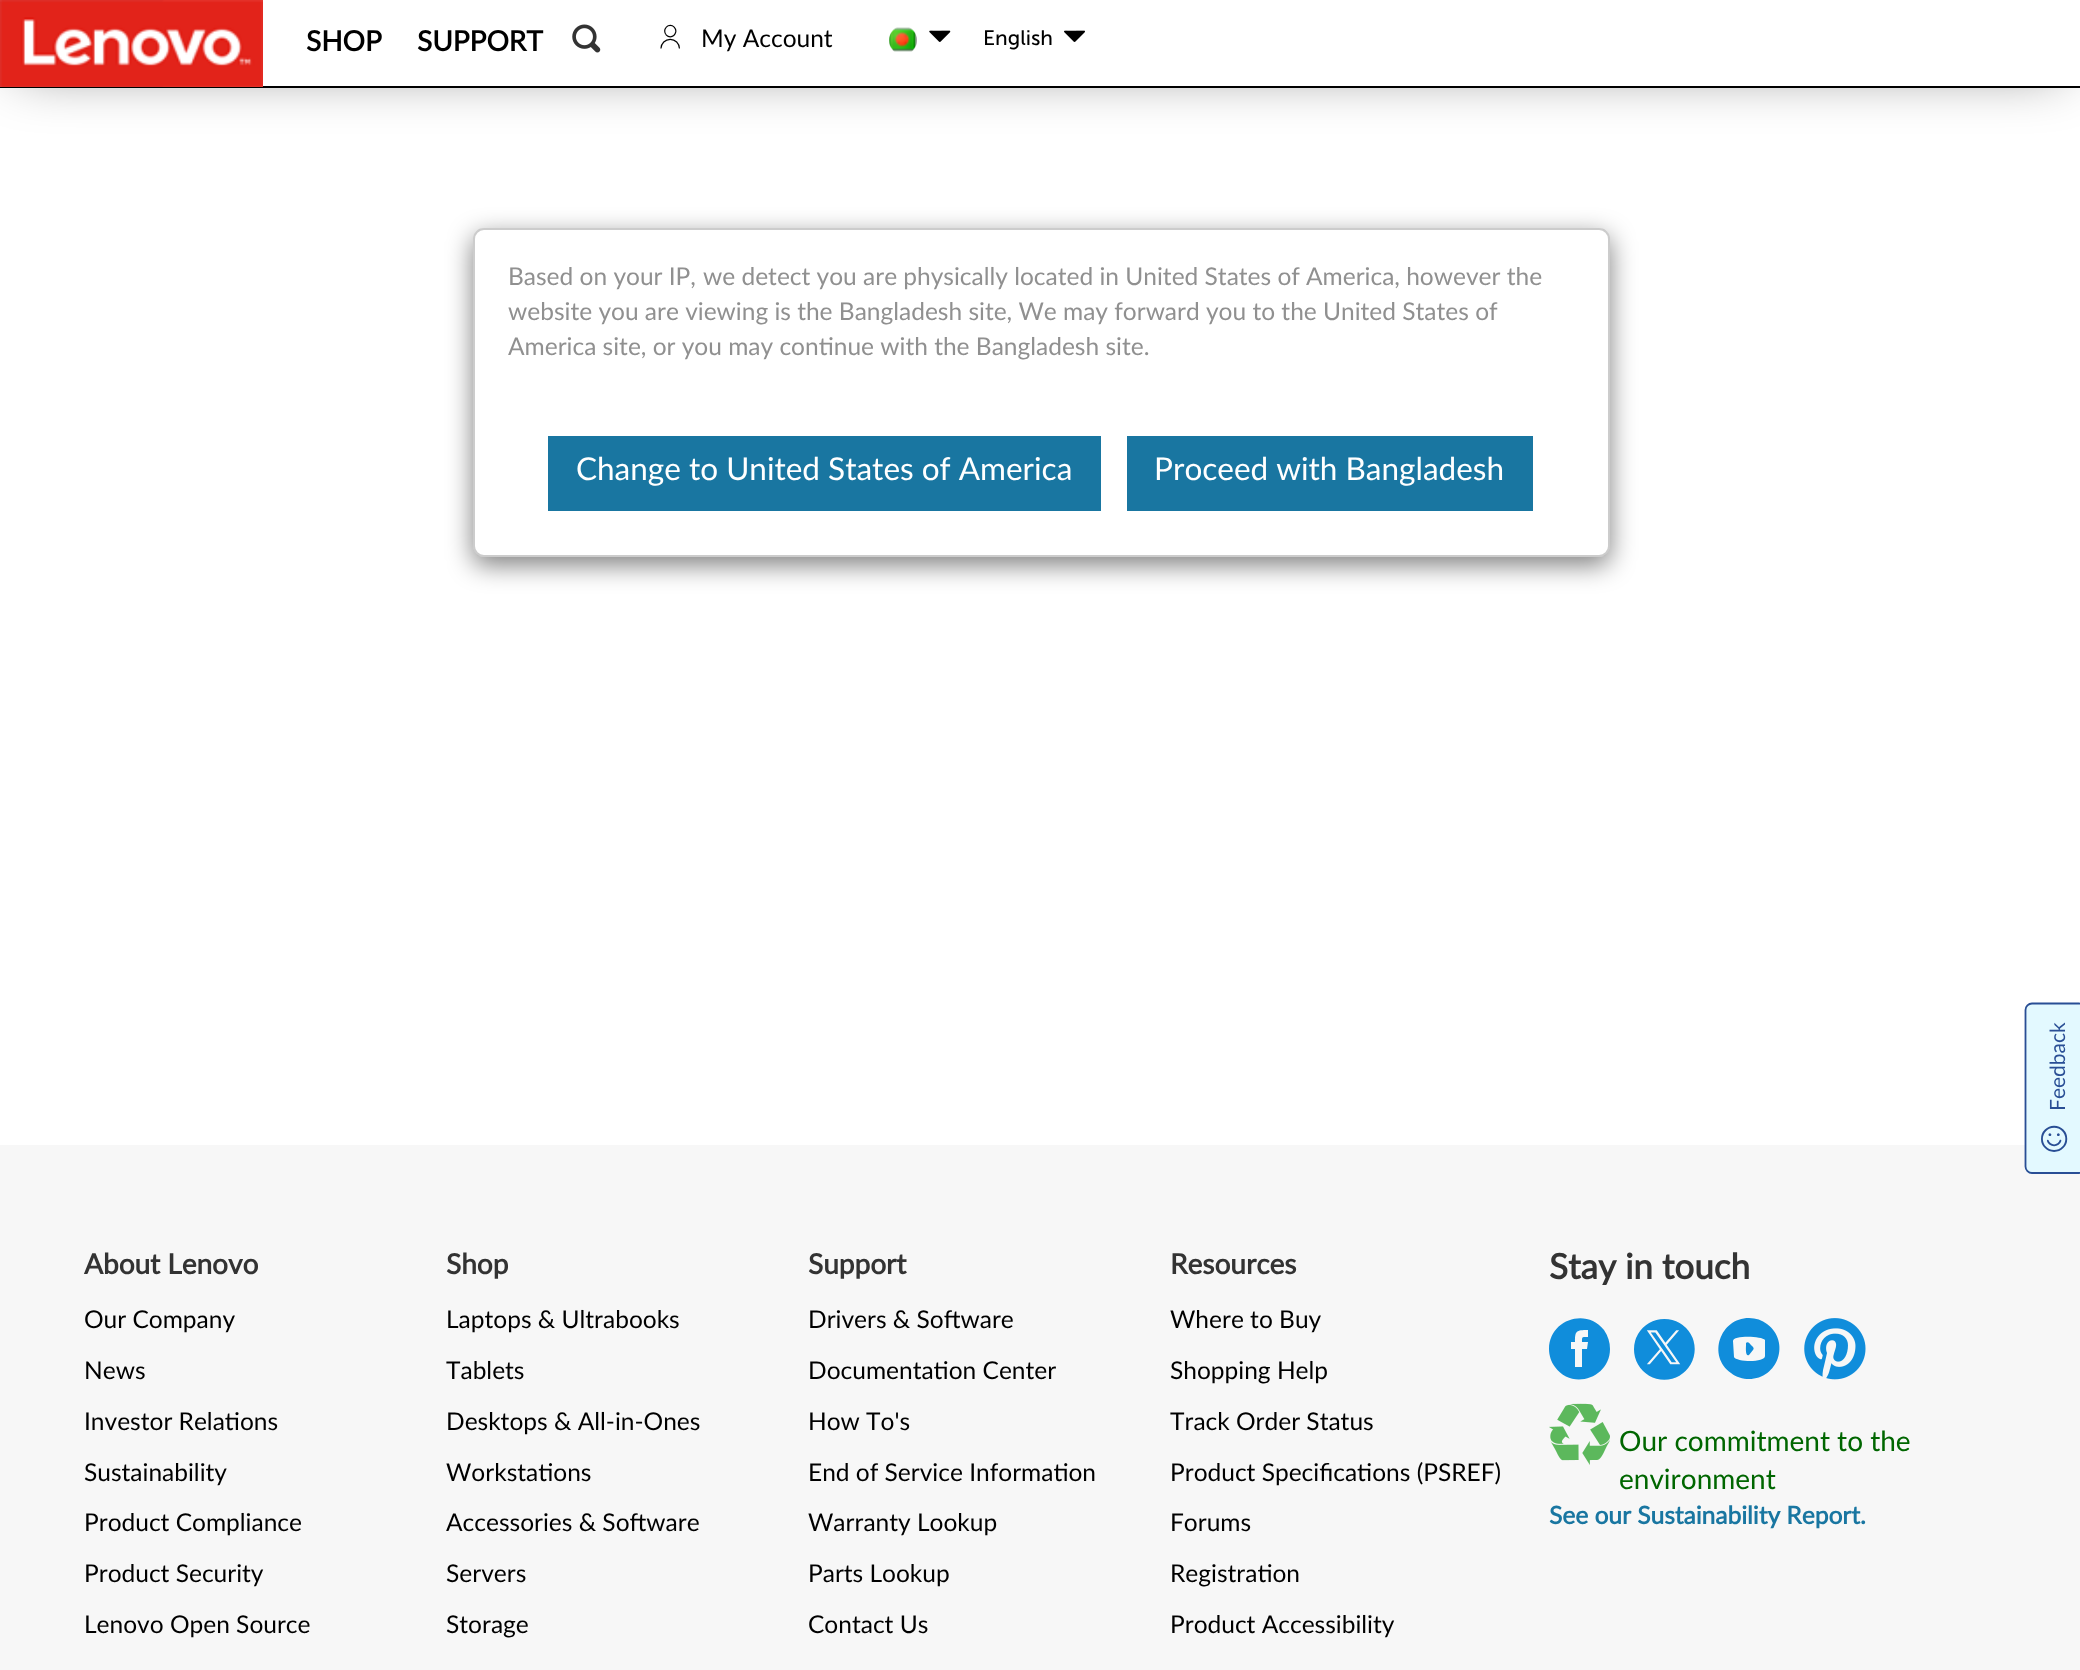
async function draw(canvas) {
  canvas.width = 2080
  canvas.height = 1670
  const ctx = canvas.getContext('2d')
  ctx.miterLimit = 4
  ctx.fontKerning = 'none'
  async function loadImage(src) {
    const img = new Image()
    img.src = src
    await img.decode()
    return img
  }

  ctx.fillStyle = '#fff'
  ctx.fillRect(0, 0, 2080, 1670)
  ctx.fillStyle = '#00000080'
  ctx.filter = 'blur(28px)'
  ctx.beginPath()
  ctx.rect(18, 18, 2045, 52)
  ctx.fill()
  ctx.filter = 'none'
  ctx.fillStyle = '#fff'
  ctx.fillRect(263, 0, 1817, 86)
  ctx.fillStyle = '#000'
  ctx.fillRect(0, 86, 2080, 2)
  ctx.drawImage(await loadImage('image0.png'), 0, 0, 263, 87)
  ctx.font = 'bold 28px Lato'
  ctx.fillText('SHOP', 306, 51)
  ctx.fillText('SUPPORT', 417, 51)
  ctx.drawImage(await loadImage('image1.png'), 572, 24, 29, 29)
  ctx.font = '24.5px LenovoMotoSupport'
  ctx.fillText('󡑆', 658, 47)
  ctx.font = '24.5px Lato'
  ctx.fillText('My Account', 701, 47)
  ctx.drawImage(await loadImage('image2.png'), 889, 27, 28, 25)
  ctx.drawImage(await loadImage('image3.png'), 929, 30, 22, 12)
  ctx.font = '21px Museo Sans'
  ctx.fillText('English', 983, 45)
  ctx.drawImage(await loadImage('image4.png'), 1064, 30, 21, 12)
  ctx.fillStyle = '#f7f7f7'
  ctx.fillRect(0, 1145, 2080, 525)
  ctx.save()
  ctx.beginPath()
  ctx.moveTo(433, 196)
  ctx.lineTo(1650, 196)
  ctx.lineTo(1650, 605)
  ctx.lineTo(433, 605)
  ctx.closePath()
  ctx.moveTo(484, 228)
  ctx.lineTo(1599, 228)
  ctx.bezierCurveTo(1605, 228, 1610, 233, 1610, 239)
  ctx.lineTo(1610, 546)
  ctx.bezierCurveTo(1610, 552, 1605, 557, 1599, 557)
  ctx.lineTo(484, 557)
  ctx.bezierCurveTo(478, 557, 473, 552, 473, 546)
  ctx.lineTo(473, 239)
  ctx.bezierCurveTo(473, 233, 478, 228, 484, 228)
  ctx.closePath()
  ctx.clip('evenodd')
  ctx.fillStyle = '#00000080'
  ctx.filter = 'blur(13px)'
  ctx.beginPath()
  ctx.roundRect(473, 236, 1137, 329, 11)
  ctx.fill()
  ctx.filter = 'none'
  ctx.restore()
  ctx.beginPath()
  ctx.roundRect(474, 229, 1135, 327, 10)
  ctx.strokeStyle = '#00000033'
  ctx.lineWidth = 2
  ctx.stroke()
  ctx.font = '24.5px Lato'
  ctx.fillStyle = '#909090'
  ctx.fillText('Based on your IP,', 508, 285)
  ctx.fillText('we detect you are physically located in United States of', 703, 285)
  ctx.fillText('America, however the', 1306, 285)
  ctx.fillText('website you are viewing is the Bangladesh site, We', 508, 320)
  ctx.fillText('may forward you to the United States of', 1063, 320)
  ctx.fillText('America site, or you may continue with the Bangladesh site.', 508, 355)
  ctx.fillStyle = '#1976a1'
  ctx.fillRect(548, 436, 553, 75)
  ctx.font = '31.5px Lato'
  ctx.fillStyle = '#fff'
  ctx.fillText('Change to United States of America', 576, 480)
  ctx.fillStyle = '#1976a1'
  ctx.fillRect(1127, 436, 406, 75)
  ctx.fillStyle = '#fff'
  ctx.fillText('Proceed with Bangladesh', 1154, 480)
  ctx.font = 'bold 35px Lato'
  ctx.fillStyle = '#333'
  ctx.fillText('Stay in touch', 1549, 1279)
  ctx.fillStyle = '#108ddb'
  ctx.beginPath()
  ctx.moveTo(1610, 1349)
  ctx.bezierCurveTo(1610, 1342, 1608, 1336, 1604, 1330)
  ctx.bezierCurveTo(1586, 1307, 1549, 1320, 1549, 1349)
  ctx.bezierCurveTo(1549, 1355, 1551, 1362, 1555, 1367)
  ctx.bezierCurveTo(1572, 1391, 1610, 1378, 1610, 1349)
  ctx.closePath()
  ctx.moveTo(1582, 1349)
  ctx.lineTo(1582, 1367)
  ctx.lineTo(1575, 1367)
  ctx.lineTo(1575, 1349)
  ctx.lineTo(1571, 1349)
  ctx.lineTo(1571, 1342)
  ctx.lineTo(1575, 1342)
  ctx.bezierCurveTo(1575, 1331, 1576, 1330, 1588, 1330)
  ctx.lineTo(1588, 1337)
  ctx.bezierCurveTo(1582, 1337, 1582, 1336, 1582, 1342)
  ctx.lineTo(1588, 1342)
  ctx.lineTo(1587, 1349)
  ctx.closePath()
  ctx.fill()
  ctx.font = '61px LenovoMotoSupport'
  ctx.fillText('󡔖', 1634, 1376)
  ctx.beginPath()
  ctx.moveTo(1749, 1379)
  ctx.bezierCurveTo(1778, 1379, 1791, 1342, 1767, 1324)
  ctx.bezierCurveTo(1762, 1320, 1756, 1318, 1749, 1318)
  ctx.bezierCurveTo(1720, 1318, 1707, 1356, 1731, 1373)
  ctx.bezierCurveTo(1736, 1377, 1743, 1379, 1749, 1379)
  ctx.closePath()
  ctx.moveTo(1765, 1356)
  ctx.bezierCurveTo(1765, 1363, 1736, 1362, 1734, 1357)
  ctx.lineTo(1733, 1341)
  ctx.bezierCurveTo(1733, 1335, 1762, 1336, 1765, 1340)
  ctx.closePath()
  ctx.moveTo(1753, 1350)
  ctx.bezierCurveTo(1755, 1348, 1752, 1346, 1751, 1345)
  ctx.bezierCurveTo(1750, 1344, 1748, 1341, 1746, 1343)
  ctx.lineTo(1746, 1345)
  ctx.bezierCurveTo(1746, 1347, 1745, 1357, 1749, 1355)
  ctx.closePath()
  ctx.fill()
  ctx.drawImage(await loadImage('image5.png'), 1804, 1318, 62, 62)
  ctx.drawImage(await loadImage('image6.png'), 1549, 1403, 61, 62)
  ctx.font = '28px Lato'
  ctx.fillStyle = '#060'
  ctx.fillText('Our commitment to the', 1619, 1451)
  ctx.fillText('environment', 1619, 1489)
  ctx.font = 'bold 24.5px Lato'
  ctx.fillStyle = '#1976a1'
  ctx.fillText('See our Sustainability Report.', 1549, 1524)
  ctx.font = 'bold 28px Lato'
  ctx.fillStyle = '#333'
  ctx.fillText('About Lenovo', 84, 1274)
  ctx.font = '24.5px Lato'
  ctx.fillStyle = '#000'
  ctx.fillText('Our Company', 84, 1328)
  ctx.fillText('News', 84, 1379)
  ctx.fillText('Investor Relations', 84, 1430)
  ctx.fillText('Sustainability', 84, 1481)
  ctx.fillText('Product Compliance', 84, 1531)
  ctx.fillText('Product Security', 84, 1582)
  ctx.fillText('Lenovo Open Source', 84, 1633)
  ctx.font = 'bold 28px Lato'
  ctx.fillStyle = '#333'
  ctx.fillText('Shop', 446, 1274)
  ctx.font = '24.5px Lato'
  ctx.fillStyle = '#000'
  ctx.fillText('Laptops & Ultrabooks', 446, 1328)
  ctx.fillText('Tablets', 446, 1379)
  ctx.fillText('Desktops & All-in-Ones', 446, 1430)
  ctx.fillText('Workstations', 446, 1481)
  ctx.fillText('Accessories & Software', 446, 1531)
  ctx.fillText('Servers', 446, 1582)
  ctx.fillText('Storage', 446, 1633)
  ctx.font = 'bold 28px Lato'
  ctx.fillStyle = '#333'
  ctx.fillText('Support', 808, 1274)
  ctx.font = '24.5px Lato'
  ctx.fillStyle = '#000'
  ctx.fillText('Drivers & Software', 808, 1328)
  ctx.fillText('Documentation Center', 808, 1379)
  ctx.fillText('How To\'s', 808, 1430)
  ctx.fillText('End of Service Information', 808, 1481)
  ctx.fillText('Warranty Lookup', 808, 1531)
  ctx.fillText('Parts Lookup', 808, 1582)
  ctx.fillText('Contact Us', 808, 1633)
  ctx.font = 'bold 28px Lato'
  ctx.fillStyle = '#333'
  ctx.fillText('Resources', 1170, 1274)
  ctx.font = '24.5px Lato'
  ctx.fillStyle = '#000'
  ctx.fillText('Where to Buy', 1170, 1328)
  ctx.fillText('Shopping Help', 1170, 1379)
  ctx.fillText('Track Order Status', 1170, 1430)
  ctx.fillText('Product Specifications (PSREF)', 1170, 1481)
  ctx.fillText('Forums', 1170, 1531)
  ctx.fillText('Registration', 1170, 1582)
  ctx.fillText('Product Accessibility', 1170, 1633)
  ctx.fillStyle = '#e3f9ff'
  ctx.beginPath()
  ctx.moveTo(2025, 1167)
  ctx.lineTo(2025, 1010)
  ctx.bezierCurveTo(2025, 1006, 2028, 1003, 2032, 1003)
  ctx.lineTo(2079, 1003)
  ctx.bezierCurveTo(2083, 1003, 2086, 1006, 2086, 1010)
  ctx.lineTo(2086, 1167)
  ctx.bezierCurveTo(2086, 1171, 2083, 1174, 2079, 1174)
  ctx.lineTo(2032, 1174)
  ctx.bezierCurveTo(2028, 1174, 2025, 1171, 2025, 1167)
  ctx.closePath()
  ctx.fill()
  ctx.beginPath()
  ctx.moveTo(2025.5, 1166.5)
  ctx.lineTo(2025.5, 1010)
  ctx.bezierCurveTo(2025.5, 1006.5, 2028.5, 1003.5, 2032, 1003.5)
  ctx.lineTo(2079, 1003.5)
  ctx.bezierCurveTo(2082.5, 1003.5, 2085, 1006.5, 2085, 1010)
  ctx.lineTo(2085, 1166.5)
  ctx.bezierCurveTo(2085, 1170, 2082.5, 1173, 2079, 1173)
  ctx.lineTo(2032, 1173)
  ctx.bezierCurveTo(2028.5, 1173, 2025.5, 1170, 2025.5, 1166.5)
  ctx.closePath()
  ctx.strokeStyle = '#294e95'
  ctx.lineWidth = 1.8
  ctx.stroke()
  ctx.font = '21px Lato'
  ctx.fillStyle = '#294e95'
  ctx.save()
  ctx.translate(2065, 1111)
  ctx.rotate(-90 * Math.PI / 180)
  ctx.fillText('Feedback', 0, 0)
  ctx.restore()
  ctx.font = '28px LenovoMotoSupport'
  ctx.fillText('󡉵', 2041, 1152)
}

draw(document.querySelector('canvas'))
